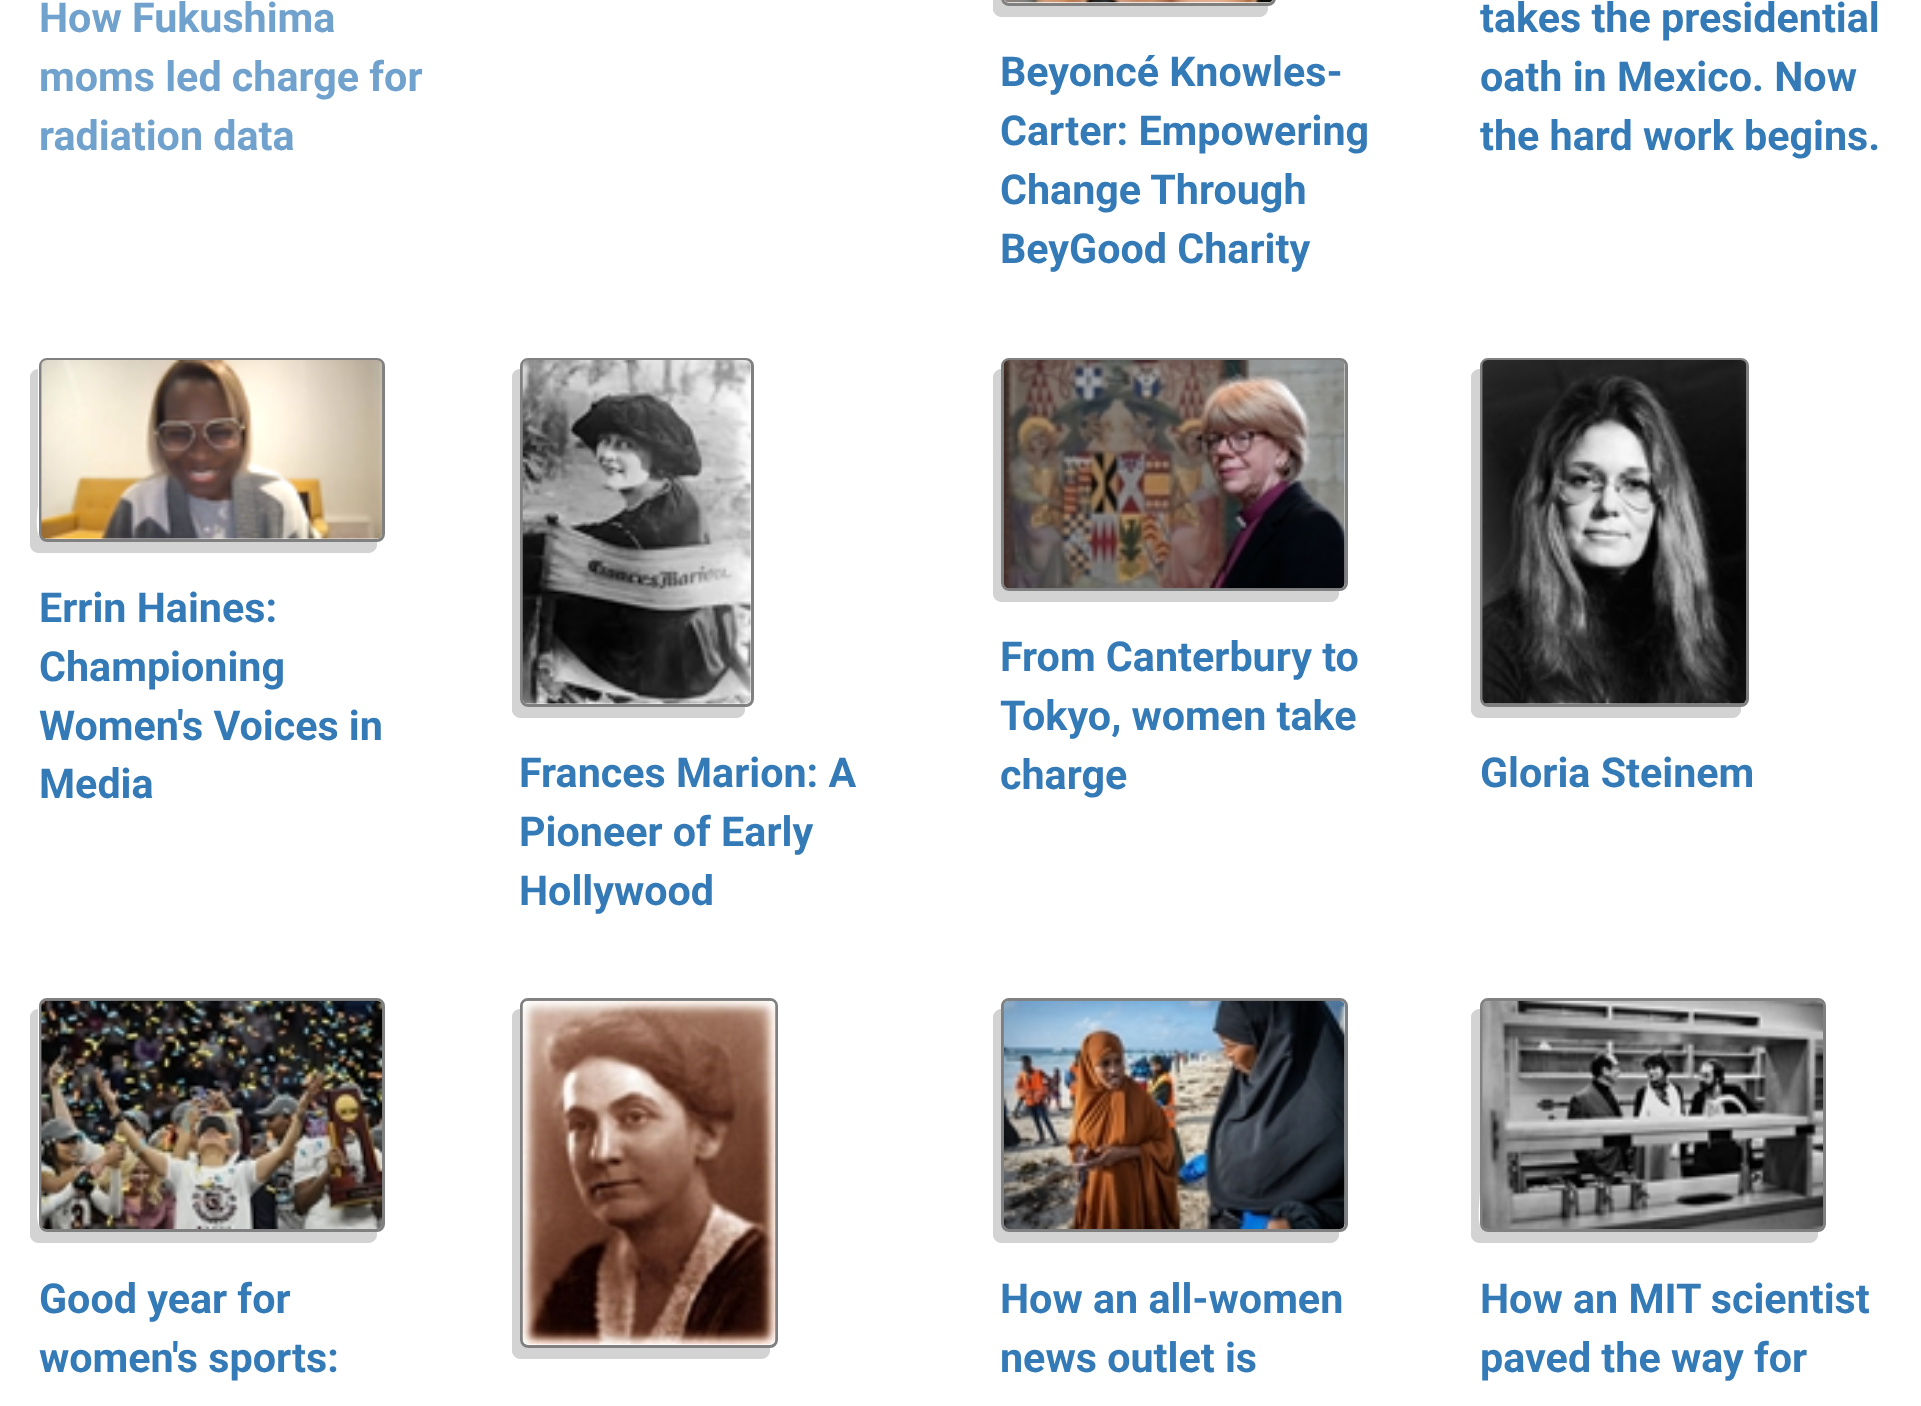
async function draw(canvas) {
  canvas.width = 1921
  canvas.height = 1406
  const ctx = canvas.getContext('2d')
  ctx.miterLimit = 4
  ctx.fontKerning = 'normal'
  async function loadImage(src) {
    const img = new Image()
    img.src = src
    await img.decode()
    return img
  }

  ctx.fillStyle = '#fff'
  ctx.fillRect(0, 0, 1921, 1406)
  ctx.font = 'bold 41.25px Roboto'
  ctx.fillStyle = '#70a2cd'
  ctx.fillText('How Fukushima', 39, 32)
  ctx.fillText('moms led charge for', 39, 91)
  ctx.fillText('radiation data', 39, 150)
  ctx.fillStyle = '#d3d3d3'
  ctx.beginPath()
  ctx.moveTo(1001, -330)
  ctx.bezierCurveTo(997, -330, 993, -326, 993, -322)
  ctx.lineTo(993, 9)
  ctx.bezierCurveTo(993, 13, 997, 17, 1001, 17)
  ctx.lineTo(1260, 17)
  ctx.bezierCurveTo(1264, 17, 1268, 13, 1268, 9)
  ctx.lineTo(1268, 5)
  ctx.lineTo(1009, 6)
  ctx.bezierCurveTo(1005, 5, 1001, 2, 1001, -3)
  ctx.closePath()
  ctx.fill()
  ctx.beginPath()
  ctx.roundRect(1002.5, -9.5, 272, 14, 6.5)
  ctx.strokeStyle = '#808080'
  ctx.lineWidth = 3
  ctx.stroke()
  ctx.drawImage(await loadImage('image0.png'), 1005, 0, 268, 3)
  ctx.fillStyle = '#337ab7'
  ctx.fillText('Beyoncé Knowles-', 1000, 86)
  ctx.fillText('Carter: Empowering', 1000, 145)
  ctx.fillText('Change Through', 1000, 204)
  ctx.fillText('BeyGood Charity', 1000, 263)
  ctx.fillText('takes the presidential', 1480, 32)
  ctx.fillText('oath in Mexico. Now', 1480, 91)
  ctx.fillText('the hard work begins.', 1480, 150)
  ctx.fillStyle = '#d3d3d3'
  ctx.beginPath()
  ctx.moveTo(38, 369)
  ctx.bezierCurveTo(34, 369, 30, 373, 30, 377)
  ctx.lineTo(30, 545)
  ctx.bezierCurveTo(30, 549, 34, 553, 38, 553)
  ctx.lineTo(369, 553)
  ctx.bezierCurveTo(373, 553, 377, 549, 377, 545)
  ctx.lineTo(377, 542)
  ctx.lineTo(47, 542)
  ctx.bezierCurveTo(32, 542, 38, 508, 38, 506)
  ctx.closePath()
  ctx.fill()
  ctx.beginPath()
  ctx.roundRect(40.5, 359.5, 343, 181, 6.5)
  ctx.stroke()
  ctx.drawImage(await loadImage('image1.png'), 41, 360, 342, 179)
  ctx.fillStyle = '#337ab7'
  ctx.fillText('Errin Haines:', 39, 622)
  ctx.fillText('Championing', 39, 681)
  ctx.fillText('Women\'s Voices in', 39, 740)
  ctx.fillText('Media', 39, 798)
  ctx.fillStyle = '#d3d3d3'
  ctx.beginPath()
  ctx.moveTo(1001, 369)
  ctx.bezierCurveTo(997, 369, 993, 373, 993, 377)
  ctx.lineTo(993, 594)
  ctx.bezierCurveTo(993, 598, 997, 602, 1001, 602)
  ctx.lineTo(1331, 602)
  ctx.bezierCurveTo(1335, 602, 1339, 598, 1339, 594)
  ctx.lineTo(1339, 591)
  ctx.lineTo(1009, 591)
  ctx.bezierCurveTo(1005, 591, 1001, 588, 1001, 583)
  ctx.closePath()
  ctx.fill()
  ctx.beginPath()
  ctx.roundRect(1002.5, 359.5, 344, 230, 6.5)
  ctx.stroke()
  ctx.drawImage(await loadImage('image2.png'), 1003, 360, 342, 229)
  ctx.fillStyle = '#337ab7'
  ctx.fillText('From Canterbury to', 1000, 671)
  ctx.fillText('Tokyo, women take', 1000, 730)
  ctx.fillText('charge', 1000, 789)
  ctx.fillStyle = '#d3d3d3'
  ctx.beginPath()
  ctx.moveTo(520, 369)
  ctx.bezierCurveTo(515, 369, 512, 373, 512, 377)
  ctx.lineTo(512, 710)
  ctx.bezierCurveTo(512, 714, 516, 718, 520, 718)
  ctx.lineTo(737, 718)
  ctx.bezierCurveTo(741, 718, 745, 714, 745, 710)
  ctx.lineTo(745, 707)
  ctx.lineTo(528, 707)
  ctx.bezierCurveTo(523, 707, 520, 703, 520, 698)
  ctx.closePath()
  ctx.fill()
  ctx.beginPath()
  ctx.roundRect(521.5, 359.5, 231, 346, 6.5)
  ctx.stroke()
  ctx.drawImage(await loadImage('image3.png'), 522, 360, 229, 344)
  ctx.fillStyle = '#337ab7'
  ctx.fillText('Frances Marion: A', 519, 787)
  ctx.fillText('Pioneer of Early', 519, 846)
  ctx.fillText('Hollywood', 519, 905)
  ctx.fillStyle = '#d3d3d3'
  ctx.beginPath()
  ctx.moveTo(1479, 369)
  ctx.bezierCurveTo(1475, 369, 1471, 373, 1471, 377)
  ctx.lineTo(1471, 710)
  ctx.bezierCurveTo(1471, 714, 1475, 718, 1479, 718)
  ctx.lineTo(1733, 718)
  ctx.bezierCurveTo(1737, 718, 1741, 714, 1741, 710)
  ctx.lineTo(1741, 707)
  ctx.lineTo(1488, 707)
  ctx.bezierCurveTo(1483, 707, 1480, 703, 1480, 698)
  ctx.lineTo(1480, 369)
  ctx.closePath()
  ctx.fill()
  ctx.beginPath()
  ctx.roundRect(1481.5, 359.5, 266, 346, 6.5)
  ctx.stroke()
  ctx.drawImage(await loadImage('image4.png'), 1482, 360, 265, 344)
  ctx.fillStyle = '#337ab7'
  ctx.fillText('Gloria Steinem', 1480, 787)
  ctx.fillStyle = '#d3d3d3'
  ctx.beginPath()
  ctx.moveTo(38, 1009)
  ctx.bezierCurveTo(34, 1009, 30, 1013, 30, 1017)
  ctx.lineTo(30, 1235)
  ctx.bezierCurveTo(30, 1239, 34, 1243, 38, 1243)
  ctx.lineTo(369, 1243)
  ctx.bezierCurveTo(373, 1243, 377, 1239, 377, 1235)
  ctx.lineTo(377, 1232)
  ctx.lineTo(47, 1232)
  ctx.bezierCurveTo(33, 1232, 38, 1204, 38, 1188)
  ctx.closePath()
  ctx.fill()
  ctx.beginPath()
  ctx.roundRect(40.5, 999.5, 343, 231, 6.5)
  ctx.stroke()
  ctx.drawImage(await loadImage('image5.png'), 41, 1000, 342, 229)
  ctx.fillStyle = '#337ab7'
  ctx.fillText('Good year for', 39, 1313)
  ctx.fillText('women\'s sports:', 39, 1372)
  ctx.fillStyle = '#d3d3d3'
  ctx.beginPath()
  ctx.moveTo(520, 1009)
  ctx.bezierCurveTo(515, 1009, 512, 1013, 512, 1017)
  ctx.lineTo(512, 1351)
  ctx.bezierCurveTo(512, 1355, 516, 1359, 520, 1359)
  ctx.lineTo(762, 1359)
  ctx.bezierCurveTo(766, 1359, 770, 1355, 770, 1351)
  ctx.lineTo(770, 1348)
  ctx.lineTo(528, 1348)
  ctx.bezierCurveTo(523, 1348, 520, 1344, 520, 1339)
  ctx.closePath()
  ctx.fill()
  ctx.beginPath()
  ctx.roundRect(521.5, 999.5, 255, 347, 6.5)
  ctx.stroke()
  ctx.drawImage(await loadImage('image6.png'), 522, 1000, 254, 345)
  ctx.beginPath()
  ctx.moveTo(1001, 1009)
  ctx.bezierCurveTo(997, 1009, 993, 1013, 993, 1017)
  ctx.lineTo(993, 1235)
  ctx.bezierCurveTo(993, 1239, 997, 1243, 1001, 1243)
  ctx.lineTo(1331, 1243)
  ctx.bezierCurveTo(1335, 1243, 1339, 1239, 1339, 1235)
  ctx.lineTo(1339, 1232)
  ctx.lineTo(1009, 1232)
  ctx.bezierCurveTo(1005, 1232, 1001, 1228, 1001, 1224)
  ctx.closePath()
  ctx.fill()
  ctx.beginPath()
  ctx.roundRect(1002.5, 999.5, 344, 231, 6.5)
  ctx.stroke()
  ctx.drawImage(await loadImage('image7.png'), 1003, 1000, 342, 229)
  ctx.fillStyle = '#337ab7'
  ctx.fillText('How an all-women', 1000, 1313)
  ctx.fillText('news outlet is', 1000, 1372)
  ctx.fillStyle = '#d3d3d3'
  ctx.beginPath()
  ctx.moveTo(1479, 1009)
  ctx.bezierCurveTo(1475, 1009, 1471, 1013, 1471, 1017)
  ctx.lineTo(1471, 1235)
  ctx.bezierCurveTo(1471, 1239, 1475, 1243, 1479, 1243)
  ctx.lineTo(1810, 1243)
  ctx.bezierCurveTo(1814, 1243, 1818, 1239, 1818, 1235)
  ctx.lineTo(1818, 1232)
  ctx.lineTo(1488, 1232)
  ctx.bezierCurveTo(1474, 1232, 1480, 1204, 1480, 1188)
  ctx.lineTo(1480, 1009)
  ctx.closePath()
  ctx.fill()
  ctx.beginPath()
  ctx.roundRect(1481.5, 999.5, 343, 231, 6.5)
  ctx.stroke()
  ctx.drawImage(await loadImage('image8.png'), 1482, 1000, 342, 229)
  ctx.fillStyle = '#337ab7'
  ctx.fillText('How an MIT scientist', 1480, 1313)
  ctx.fillText('paved the way for', 1480, 1372)
}

draw(document.querySelector('canvas'))
